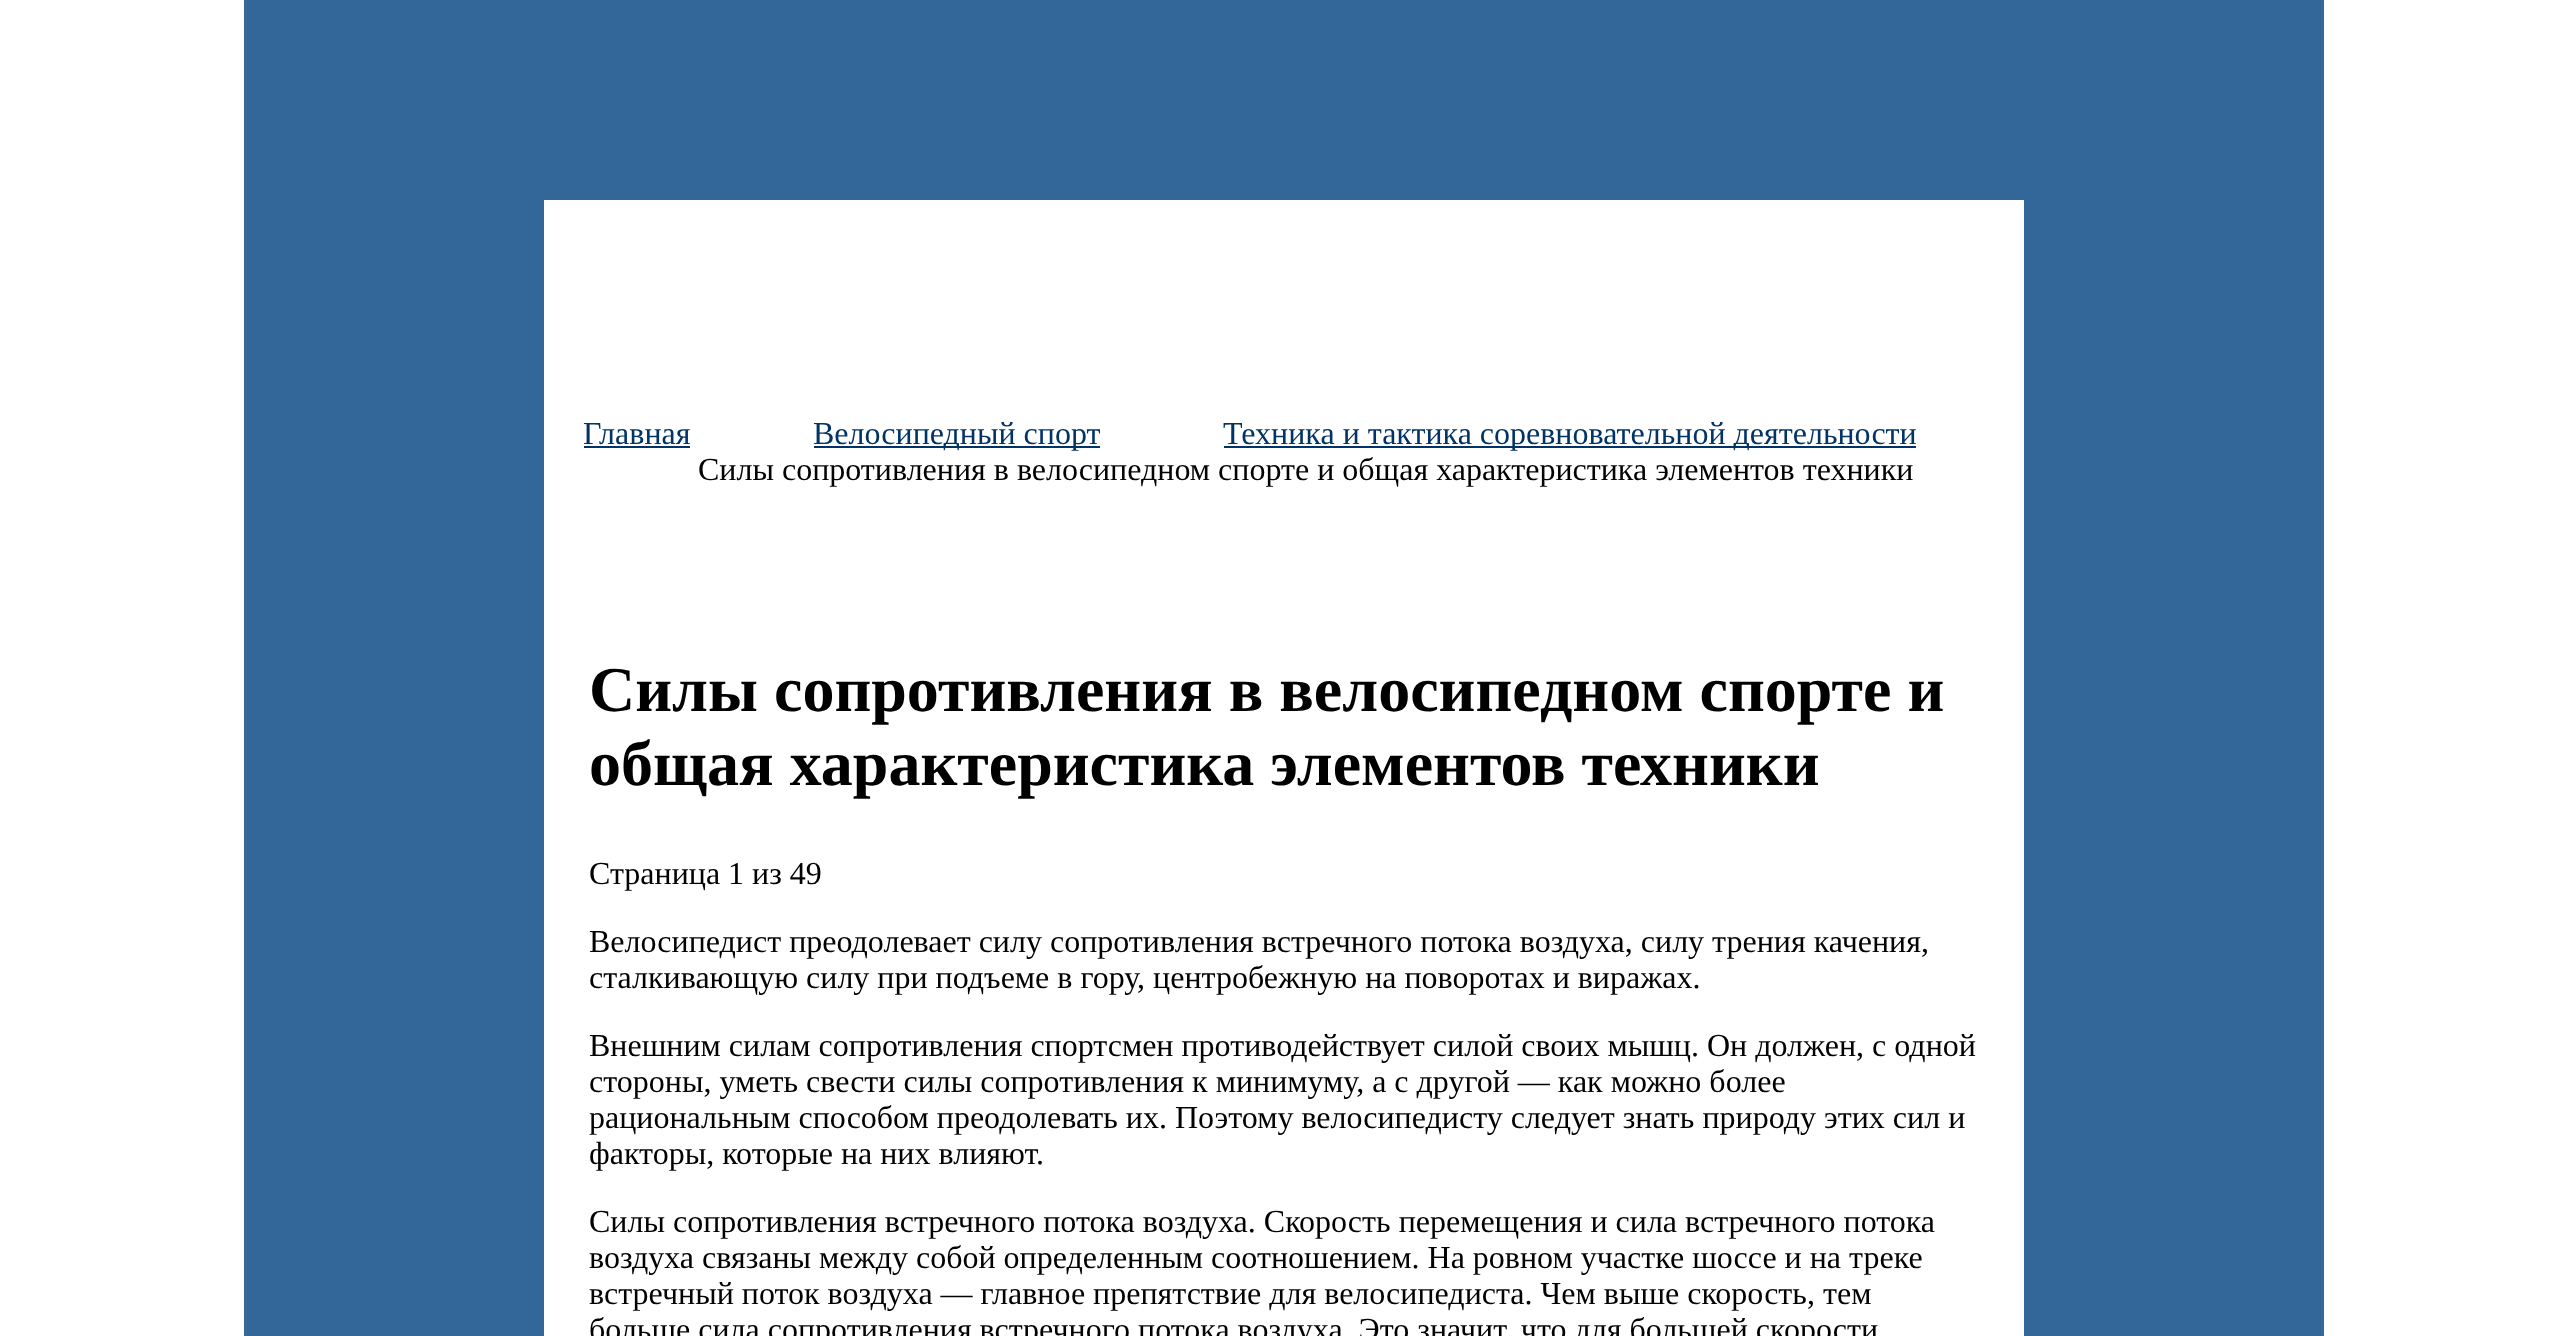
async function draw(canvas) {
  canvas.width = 2565
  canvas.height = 1336
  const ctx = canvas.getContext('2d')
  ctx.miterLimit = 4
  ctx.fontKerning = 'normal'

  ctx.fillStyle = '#fff'
  ctx.fillRect(0, 0, 2565, 1336)
  ctx.fillStyle = '#369'
  ctx.fillRect(244, 0, 2080, 200)
  ctx.fillRect(244, 200, 300, 1136)
  ctx.fillRect(2024, 200, 300, 1136)
  ctx.font = '32px Liberation Serif'
  ctx.fillStyle = '#036'
  ctx.fillText('Главная', 583, 444)
  ctx.fillRect(584, 446, 106, 2)
  ctx.fillRect(814, 446, 286, 2)
  ctx.fillText('Велосипедный спорт', 813, 444)
  ctx.fillRect(1224, 446, 692, 2)
  ctx.fillText('Техника и тактика соревновательной деятельности', 1223, 444)
  ctx.fillStyle = '#000'
  ctx.fillText('Силы сопротивления в велосипедном спорте и общая характеристика элементов техники', 698, 480)
  ctx.font = 'bold 64px Liberation Serif'
  ctx.fillText('Силы сопротивления в велосипедном спорте и', 589, 711)
  ctx.fillText('общая характеристика элементов техники', 589, 785)
  ctx.font = '32px Liberation Serif'
  ctx.fillText('Страница 1 из 49', 589, 884)
  ctx.fillText('Велосипедист преодолевает силу сопротивления встречного потока воздуха, силу трения качения,', 589, 952)
  ctx.fillText('сталкивающую силу при подъеме в гору, центробежную на поворотах и виражах.', 589, 988)
  ctx.fillText('Внешним силам сопротивления спортсмен противодействует силой своих мышц. Он должен, с одной', 589, 1056)
  ctx.fillText('стороны, уметь свести силы сопротивления к минимуму, а с другой — как можно более', 589, 1092)
  ctx.fillText('рациональным способом преодолевать их. Поэтому велосипедисту следует знать природу этих сил и', 589, 1128)
  ctx.fillText('факторы, которые на них влияют.', 589, 1164)
  ctx.fillText('Силы сопротивления встречного потока воздуха. Скорость перемещения и сила встречного потока', 589, 1232)
  ctx.fillText('воздуха связаны между собой определенным соотношением. На ровном участке шоссе и на треке', 589, 1268)
  ctx.fillText('встречный поток воздуха — главное препятствие для велосипедиста. Чем выше скорость, тем', 589, 1304)
  ctx.fillText('больше сила сопротивления встречного потока воздуха. Это значит, что для большей скорости', 589, 1340)
}

draw(document.querySelector('canvas'))
